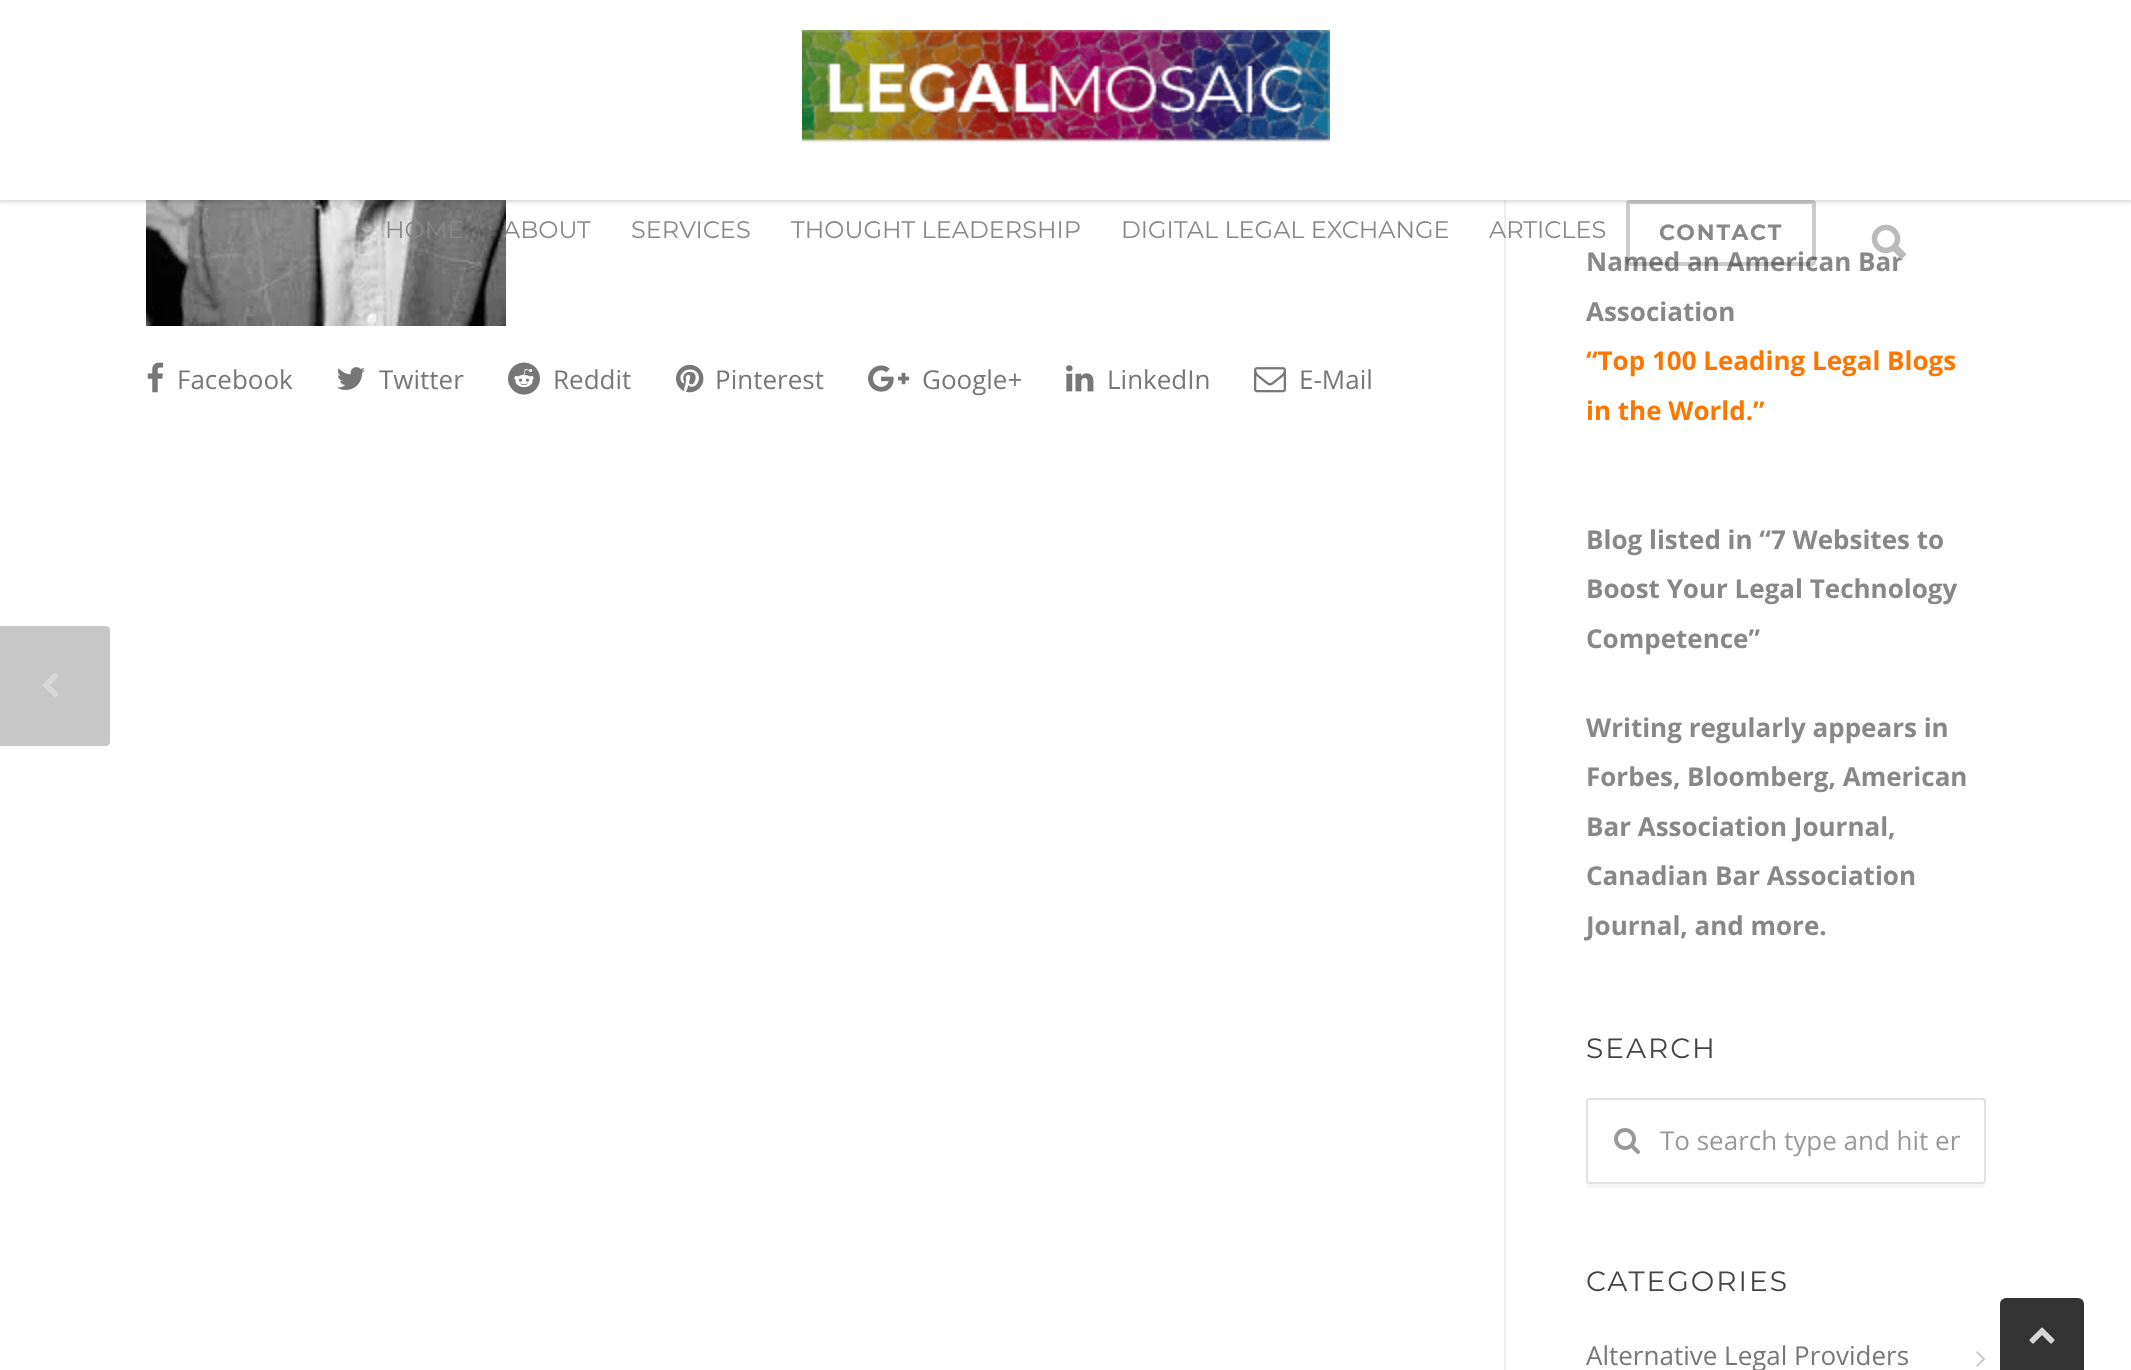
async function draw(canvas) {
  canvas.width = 2131
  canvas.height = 1370
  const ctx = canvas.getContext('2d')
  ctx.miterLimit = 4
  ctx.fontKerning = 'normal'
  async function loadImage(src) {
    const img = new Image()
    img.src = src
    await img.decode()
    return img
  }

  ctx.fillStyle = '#fff'
  ctx.fillRect(0, 0, 2131, 1370)
  ctx.drawImage(await loadImage('image2.png'), 146, 200, 360, 126)
  ctx.fillStyle = '#efefef'
  ctx.fillRect(1504, 200, 2, 1170)
  ctx.fillStyle = '#00000029'
  ctx.filter = 'blur(2px)'
  ctx.beginPath()
  ctx.rect(-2, -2, 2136, 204)
  ctx.fill()
  ctx.filter = 'none'
  ctx.fillStyle = '#fff'
  ctx.fillRect(0, 0, 2131, 200)
  ctx.drawImage(await loadImage('image0.png'), 802, 30, 528, 112)
  ctx.font = '24px Montserrat'
  ctx.fillStyle = '#888'
  ctx.fillText('HOME', 385, 238)
  ctx.fillText('ABOUT', 503, 238)
  ctx.fillText('SERVICES', 631, 238)
  ctx.fillText('THOUGHT LEADERSHIP', 791, 238)
  ctx.fillText('DIGITAL LEGAL EXCHANGE', 1121, 238)
  ctx.fillText('ARTICLES', 1489, 238)
  ctx.font = 'bold 26px Open Sans'
  ctx.fillText('Named an American Bar', 1586, 271)
  ctx.beginPath()
  ctx.roundRect(1628, 202, 186, 62, 2)
  ctx.strokeStyle = '#00000033'
  ctx.lineWidth = 4
  ctx.stroke()
  ctx.letterSpacing = '2px'
  ctx.font = 'bold 22px Montserrat'
  ctx.fillText('CONTACT', 1659, 240)
  ctx.drawImage(await loadImage('image1.png'), 1871, 224, 36, 35)
  ctx.drawImage(await loadImage('image3.png'), 147, 362, 17, 31)
  ctx.letterSpacing = '0px'
  ctx.font = '26px Open Sans'
  ctx.fillStyle = '#777'
  ctx.fillText('Facebook', 177, 389)
  ctx.drawImage(await loadImage('image4.png'), 337, 367, 28, 23)
  ctx.fillText('Twitter', 379, 389)
  ctx.drawImage(await loadImage('image5.png'), 508, 362, 32, 33)
  ctx.fillText('Reddit', 553, 389)
  ctx.drawImage(await loadImage('image6.png'), 676, 364, 28, 29)
  ctx.fillText('Pinterest', 715, 389)
  ctx.drawImage(await loadImage('image7.png'), 868, 365, 42, 27)
  ctx.fillText('Google+', 922, 389)
  ctx.drawImage(await loadImage('image8.png'), 1066, 365, 28, 27)
  ctx.fillText('LinkedIn', 1107, 389)
  ctx.drawImage(await loadImage('image9.png'), 1254, 367, 32, 26)
  ctx.fillText('E-Mail', 1299, 389)
  ctx.fillStyle = '#c7c7c7'
  ctx.beginPath()
  ctx.moveTo(-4, 626)
  ctx.lineTo(106, 626)
  ctx.bezierCurveTo(108, 626, 110, 628, 110, 630)
  ctx.lineTo(110, 742)
  ctx.bezierCurveTo(110, 744, 108, 746, 106, 746)
  ctx.lineTo(-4, 746)
  ctx.closePath()
  ctx.fill()
  ctx.drawImage(await loadImage('image10.png'), 42, 672, 17, 26)
  ctx.font = 'bold 26px Open Sans'
  ctx.fillStyle = '#888'
  ctx.fillText('Association', 1586, 321)
  ctx.fillStyle = '#fa7801'
  ctx.fillText('“Top 100 Leading Legal Blogs', 1586, 370)
  ctx.fillText('in the World.”', 1586, 420)
  ctx.fillStyle = '#888'
  ctx.fillText('Blog listed in “7 Websites to', 1586, 549)
  ctx.fillText('Boost Your Legal Technology', 1586, 598)
  ctx.fillText('Competence”', 1586, 648)
  ctx.fillText('Writing regularly appears in', 1586, 737)
  ctx.fillText('Forbes, Bloomberg, American', 1586, 786)
  ctx.fillText('Bar Association Journal,', 1586, 836)
  ctx.fillText('Canadian Bar Association', 1586, 885)
  ctx.fillText('Journal, and more.', 1586, 935)
  ctx.letterSpacing = '2px'
  ctx.font = '28px Montserrat'
  ctx.fillStyle = '#444'
  ctx.fillText('SEARCH', 1586, 1058)
  ctx.fillStyle = '#f7f7f7'
  ctx.beginPath()
  ctx.moveTo(1586, 1180)
  ctx.bezierCurveTo(1586, 1183, 1586, 1188, 1590, 1188)
  ctx.lineTo(1982, 1188)
  ctx.bezierCurveTo(1986, 1188, 1986, 1183, 1986, 1180)
  ctx.bezierCurveTo(1986, 1182, 1984, 1184, 1982, 1184)
  ctx.lineTo(1590, 1184)
  ctx.bezierCurveTo(1588, 1184, 1586, 1182, 1586, 1180)
  ctx.closePath()
  ctx.fill()
  ctx.beginPath()
  ctx.roundRect(1587, 1099, 398, 84, 3)
  ctx.strokeStyle = '#e1e1e1'
  ctx.lineWidth = 2
  ctx.stroke()
  ctx.drawImage(await loadImage('image11.png'), 1614, 1128, 26, 26)
  ctx.save()
  ctx.beginPath()
  ctx.rect(1660, 1120, 300, 42)
  ctx.clip()
  ctx.letterSpacing = '0px'
  ctx.font = '26px Open Sans'
  ctx.fillStyle = '#999'
  ctx.fillText('To search type and hit en', 1660, 1150)
  ctx.restore()
  ctx.fillStyle = '#444'
  ctx.fillText('CATEGORIES', 1586, 1291)
  ctx.letterSpacing = '0px'
  ctx.font = '26px Open Sans'
  ctx.fillStyle = '#777'
  ctx.fillText('Alternative Legal Providers', 1586, 1365)
  ctx.drawImage(await loadImage('image12.png'), 1976, 1351, 10, 16)
  ctx.fillStyle = '#333'
  ctx.beginPath()
  ctx.roundRect(2000, 1298, 84, 72, [6, 6, 0, 0])
  ctx.fill()
  ctx.drawImage(await loadImage('image13.png'), 2029, 1327, 26, 17)
}

draw(document.querySelector('canvas'))
